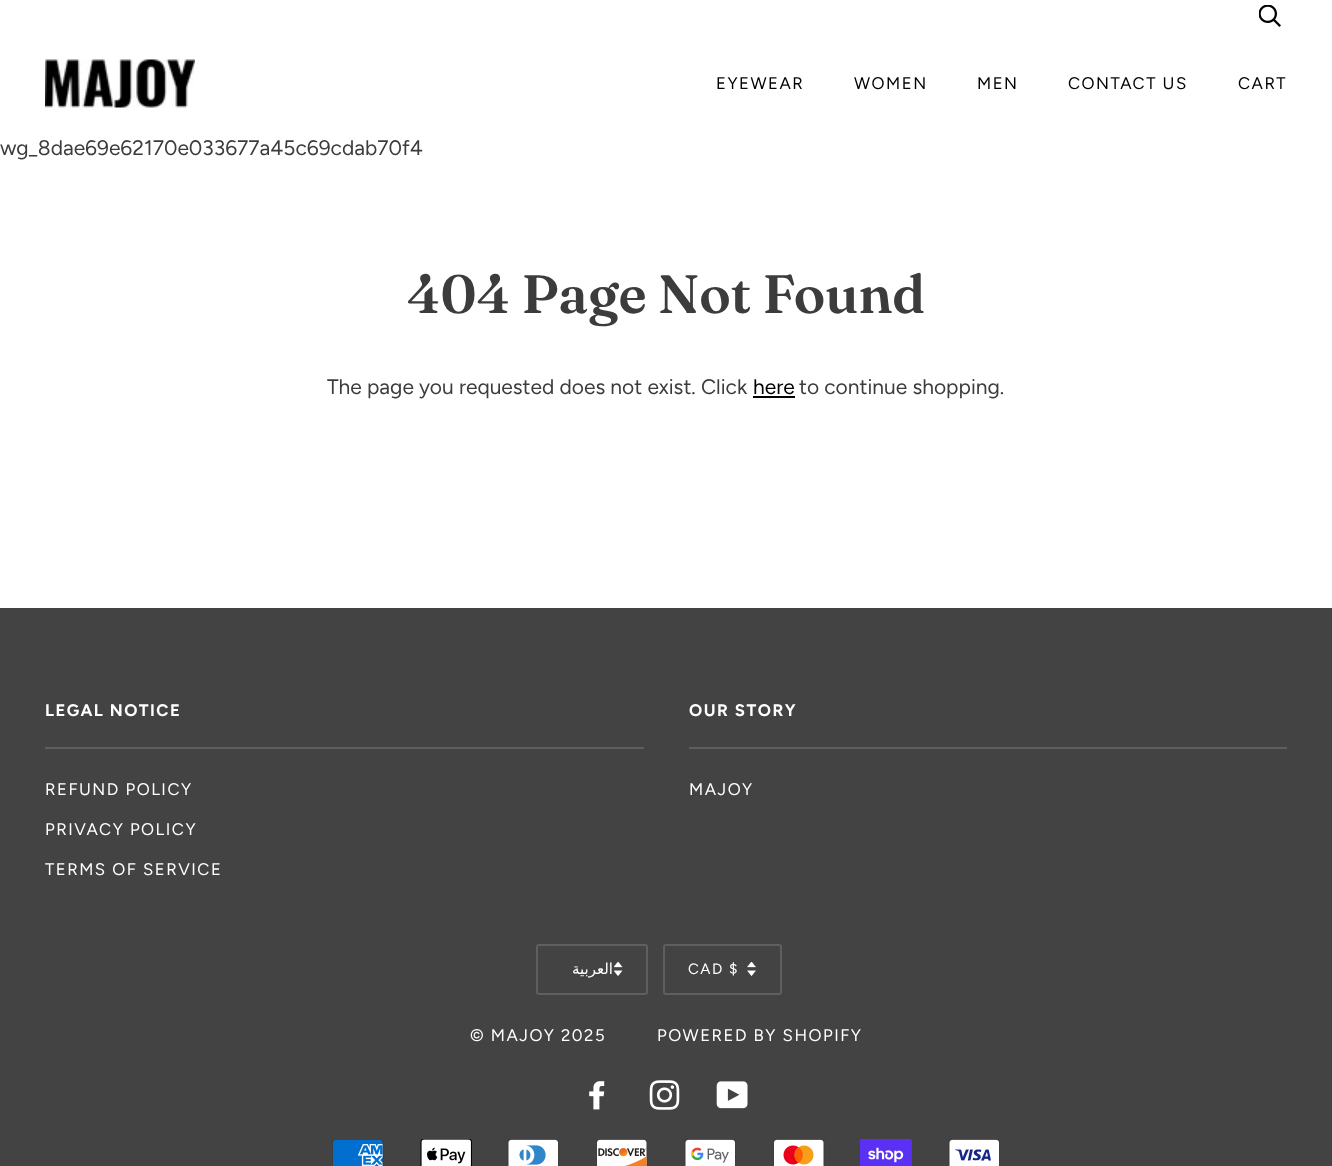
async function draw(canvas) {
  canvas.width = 1332
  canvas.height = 1166
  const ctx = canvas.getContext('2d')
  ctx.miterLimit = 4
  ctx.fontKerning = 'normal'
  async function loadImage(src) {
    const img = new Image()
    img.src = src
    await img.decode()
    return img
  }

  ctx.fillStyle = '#fff'
  ctx.fillRect(0, 0, 1332, 1166)
  ctx.drawImage(await loadImage('image0.png'), 1259, 5, 22, 22)
  ctx.drawImage(await loadImage('image1.png'), 45, 59, 150, 49)
  ctx.letterSpacing = '1.5px'
  ctx.font = '16.75px Figtree'
  ctx.fillStyle = '#000'
  ctx.fillText('EYEWEAR', 716, 89)
  ctx.fillText('WOMEN', 854, 89)
  ctx.fillText('MEN', 977, 89)
  ctx.fillText('CONTACT US', 1068, 89)
  ctx.fillText('CART', 1238, 89)
  ctx.letterSpacing = '0px'
  ctx.font = '21px Figtree'
  ctx.fillStyle = '#3c3c3c'
  ctx.fillText('wg_8dae69e62170e033677a45c69cdab70f4', 0, 155)
  ctx.font = '600 54px Fraunces'
  ctx.fillText('404 Page Not Found', 407, 313)
  ctx.font = '21px Figtree'
  ctx.fillText('The page you requested does not exist. Click', 327, 394)
  ctx.fillStyle = '#000'
  ctx.fillText('here', 753, 394)
  ctx.fillRect(753, 396, 42, 2)
  ctx.fillStyle = '#3c3c3c'
  ctx.fillText('to continue shopping.', 799, 394)
  ctx.fillStyle = '#434343'
  ctx.fillRect(0, 608, 1332, 558)
  ctx.letterSpacing = '1.5px'
  ctx.font = 'bold 16.75px Figtree'
  ctx.fillStyle = '#fff'
  ctx.fillText('LEGAL NOTICE', 45, 716)
  ctx.fillStyle = '#5f5f5f'
  ctx.fillRect(45, 747, 599, 2)
  ctx.font = '16.75px Figtree'
  ctx.fillStyle = '#fff'
  ctx.fillText('REFUND POLICY', 45, 795)
  ctx.fillText('PRIVACY POLICY', 45, 835)
  ctx.fillText('TERMS OF SERVICE', 45, 875)
  ctx.font = 'bold 16.75px Figtree'
  ctx.fillText('OUR STORY', 689, 716)
  ctx.fillStyle = '#5f5f5f'
  ctx.fillRect(689, 747, 598, 2)
  ctx.font = '16.75px Figtree'
  ctx.fillStyle = '#fff'
  ctx.fillText('MAJOY', 689, 795)
  ctx.beginPath()
  ctx.roundRect(537, 945, 110, 49, 2)
  ctx.strokeStyle = '#5f5f5f'
  ctx.lineWidth = 2
  ctx.stroke()
  ctx.direction = 'rtl'
  ctx.font = '15px DejaVu Sans'
  ctx.fillText('العربية', 613, 974)
  ctx.drawImage(await loadImage('image2.png'), 614, 962, 9, 14)
  ctx.beginPath()
  ctx.roundRect(664, 945, 117, 49, 2)
  ctx.stroke()
  ctx.direction = 'ltr'
  ctx.font = '15px Figtree'
  ctx.fillText('CAD $', 688, 974)
  ctx.drawImage(await loadImage('image3.png'), 747, 962, 9, 14)
  ctx.font = '16.75px Figtree'
  ctx.fillText('© MAJOY 2025', 470, 1041)
  ctx.fillText('POWERED BY SHOPIFY', 657, 1041)
  ctx.drawImage(await loadImage('image4.png'), 589, 1081, 16, 29)
  ctx.drawImage(await loadImage('image5.png'), 649, 1080, 31, 30)
  ctx.drawImage(await loadImage('image6.png'), 716, 1081, 32, 28)
  ctx.drawImage(await loadImage('image7.png'), 332, 1139, 52, 27)
  ctx.drawImage(await loadImage('image8.png'), 420, 1139, 52, 27)
  ctx.drawImage(await loadImage('image9.png'), 507, 1139, 52, 27)
  ctx.drawImage(await loadImage('image10.png'), 596, 1139, 52, 27)
  ctx.drawImage(await loadImage('image11.png'), 684, 1139, 52, 27)
  ctx.drawImage(await loadImage('image12.png'), 773, 1139, 52, 27)
  ctx.drawImage(await loadImage('image13.png'), 860, 1139, 52, 27)
  ctx.drawImage(await loadImage('image14.png'), 948, 1139, 52, 27)
}

draw(document.querySelector('canvas'))
